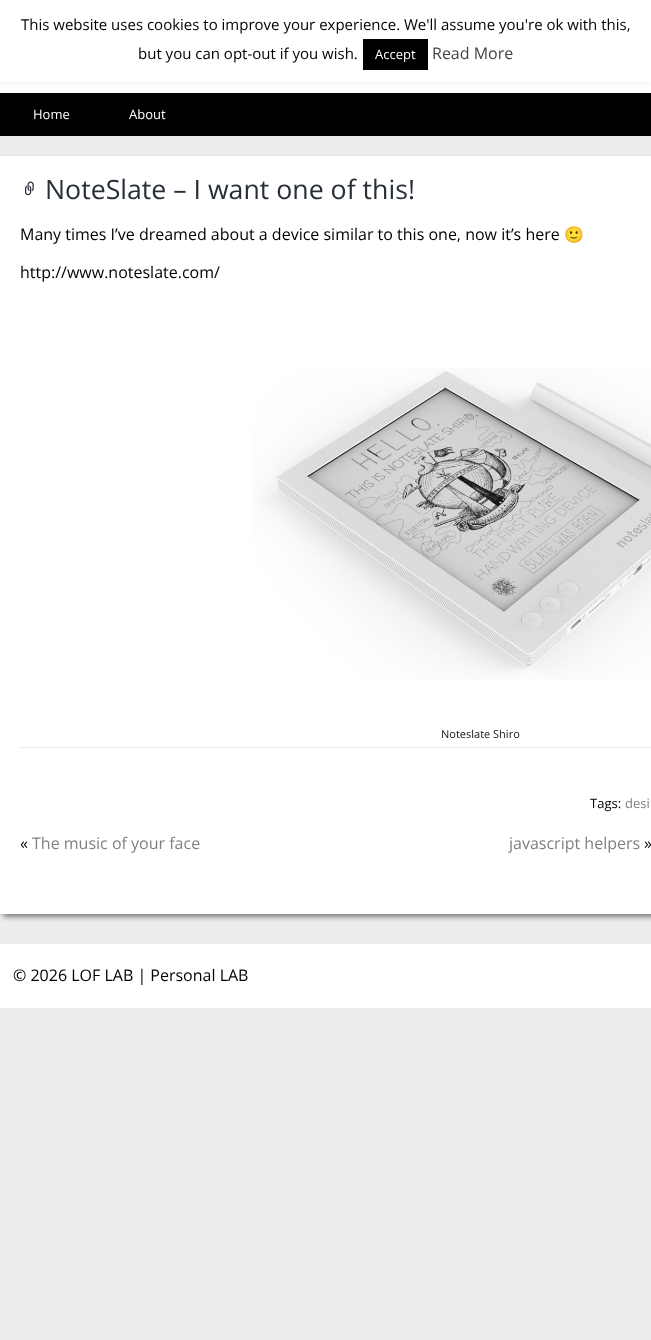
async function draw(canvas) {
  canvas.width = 651
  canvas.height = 1340
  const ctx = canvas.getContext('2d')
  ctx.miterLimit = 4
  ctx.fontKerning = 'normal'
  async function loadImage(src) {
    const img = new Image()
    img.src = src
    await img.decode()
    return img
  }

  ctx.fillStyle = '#ededed'
  ctx.fillRect(0, 0, 651, 1340)
  ctx.fillStyle = '#fff'
  ctx.fillRect(0, 82, 651, 11)
  ctx.fillStyle = '#000'
  ctx.fillRect(0, 93, 651, 43)
  ctx.fillStyle = '#acabab4d'
  ctx.filter = 'blur(5px)'
  ctx.beginPath()
  ctx.rect(0, -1, 651, 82)
  ctx.fill()
  ctx.filter = 'none'
  ctx.fillStyle = '#fff'
  ctx.fillRect(0, 0, 651, 82)
  ctx.font = '15px Open Sans'
  ctx.fillStyle = '#000'
  ctx.fillText('This website uses cookies to improve your experience. We\'ll assume you\'re ok with this,', 21, 30)
  ctx.fillText('but you can opt-out if you wish.', 138, 59)
  ctx.fillRect(363, 39, 65, 31)
  ctx.font = '13px Open Sans'
  ctx.fillStyle = '#fff'
  ctx.fillText('Accept', 375, 59)
  ctx.font = '16px Open Sans'
  ctx.fillStyle = '#444'
  ctx.fillText('Read More', 432, 59)
  ctx.font = '13px Open Sans'
  ctx.fillStyle = '#fff'
  ctx.fillText('Home', 33, 119)
  ctx.fillText('About', 129, 119)
  ctx.fillStyle = '#808080'
  ctx.filter = 'blur(2.5px)'
  ctx.beginPath()
  ctx.rect(3, 159, 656, 758)
  ctx.fill()
  ctx.filter = 'none'
  ctx.fillStyle = '#fff'
  ctx.fillRect(0, 156, 651, 758)
  ctx.drawImage(await loadImage('image0.png'), 25, 181, 9, 15)
  ctx.font = '26.7px Open Sans'
  ctx.fillStyle = '#292f38'
  ctx.fillText('NoteSlate – I want one of this!', 45, 199)
  ctx.font = '16px Open Sans'
  ctx.fillStyle = '#000'
  ctx.fillText('Many times I’ve dreamed about a device similar to this one, now it’s here', 20, 240)
  ctx.font = '16px Noto Color Emoji'
  ctx.fillText('🙂', 564, 240)
  ctx.font = '16px Open Sans'
  ctx.fillText('http://www.noteslate.com/', 20, 278)
  ctx.drawImage(await loadImage('image1.png'), 252, 368, 399, 312)
  ctx.font = '11px Open Sans'
  ctx.fillStyle = '#141414'
  ctx.fillText('Noteslate Shiro', 441, 738)
  ctx.fillStyle = '#eaeaea'
  ctx.fillRect(20, 747, 631, 1)
  ctx.font = '13px Open Sans'
  ctx.fillStyle = '#000'
  ctx.fillText('Tags:', 590, 808)
  ctx.fillStyle = '#808080'
  ctx.fillText('desi', 625, 808)
  ctx.font = '16px Open Sans'
  ctx.fillStyle = '#000'
  ctx.fillText('«', 20, 849)
  ctx.fillStyle = '#808080'
  ctx.fillText('The music of your face', 32, 849)
  ctx.fillText('javascript helpers', 509, 849)
  ctx.fillStyle = '#000'
  ctx.fillText('»', 644, 849)
  ctx.fillStyle = '#fff'
  ctx.fillRect(0, 944, 651, 64)
  ctx.fillStyle = '#000'
  ctx.fillText('© 2026 LOF LAB | Personal LAB', 13, 981)
}

draw(document.querySelector('canvas'))
